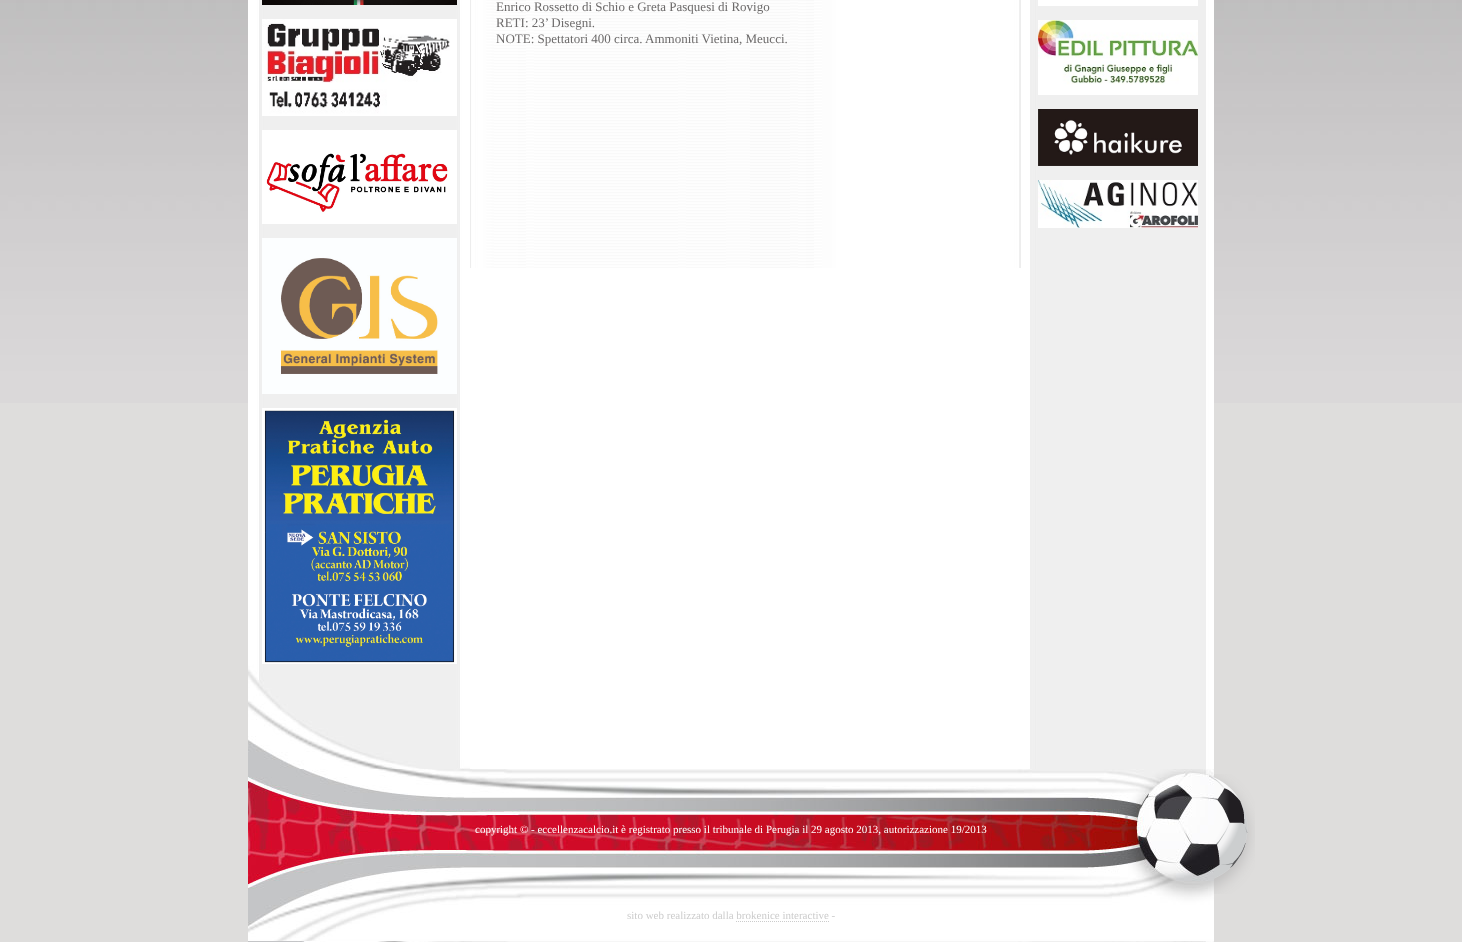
async function draw(canvas) {
  canvas.width = 1462
  canvas.height = 942
  const ctx = canvas.getContext('2d')
  ctx.miterLimit = 4
  ctx.fontKerning = 'normal'
  async function loadImage(src) {
    const img = new Image()
    img.src = src
    await img.decode()
    return img
  }

  ctx.fillStyle = '#dedddc'
  ctx.fillRect(0, 0, 1462, 942)
  ctx.drawImage(await loadImage('image0.png'), 0, 0, 1462, 403)
  ctx.fillStyle = '#fff'
  ctx.fillRect(470, 268, 551, 501)
  ctx.drawImage(await loadImage('image1.png'), 248, 0, 222, 664)
  ctx.drawImage(await loadImage('image2.png'), 262, 0, 195, 5)
  ctx.drawImage(await loadImage('image3.png'), 262, 19, 195, 97)
  ctx.drawImage(await loadImage('image4.png'), 262, 130, 195, 94)
  ctx.drawImage(await loadImage('image5.png'), 262, 238, 195, 156)
  ctx.drawImage(await loadImage('image6.png'), 262, 408, 195, 256)
  ctx.drawImage(await loadImage('image7.png'), 248, 664, 222, 105)
  ctx.drawImage(await loadImage('image8.png'), 470, 0, 551, 268)
  ctx.font = '13px Liberation Serif'
  ctx.fillStyle = '#6c6a6a'
  ctx.fillText('Enrico Rossetto di Schio e Greta Pasquesi di Rovigo', 496, 11)
  ctx.fillText('RETI: 23’ Disegni.', 496, 27)
  ctx.fillText('NOTE: Spettatori 400 circa. Ammoniti Vietina, Meucci.', 496, 43)
  ctx.drawImage(await loadImage('image9.png'), 1021, 0, 193, 769)
  ctx.fillStyle = '#fff'
  ctx.fillRect(1038, 0, 160, 6)
  ctx.drawImage(await loadImage('image10.png'), 1038, 20, 160, 75)
  ctx.drawImage(await loadImage('image11.png'), 1038, 109, 160, 57)
  ctx.drawImage(await loadImage('image12.png'), 1038, 180, 160, 48)
  ctx.drawImage(await loadImage('image13.png'), 248, 769, 966, 173)
  ctx.font = '11px Liberation Serif'
  ctx.fillText('copyright © - eccellenzacalcio.it è registrato presso il tribunale di Perugia il 29 agosto 2013, autorizzazione 19/2013', 475, 833)
  ctx.drawImage(await loadImage('image14.png'), 1214, 774, 41, 120)
  ctx.fillStyle = '#ccc'
  ctx.fillText('sito web realizzato dalla brokenice interactive -', 627, 919)
  ctx.beginPath()
  ctx.moveTo(736, 921.5)
  ctx.lineTo(829, 921.5)
  ctx.strokeStyle = '#ccc'
  ctx.setLineDash([1, 1])
  ctx.stroke()
}

draw(document.querySelector('canvas'))
